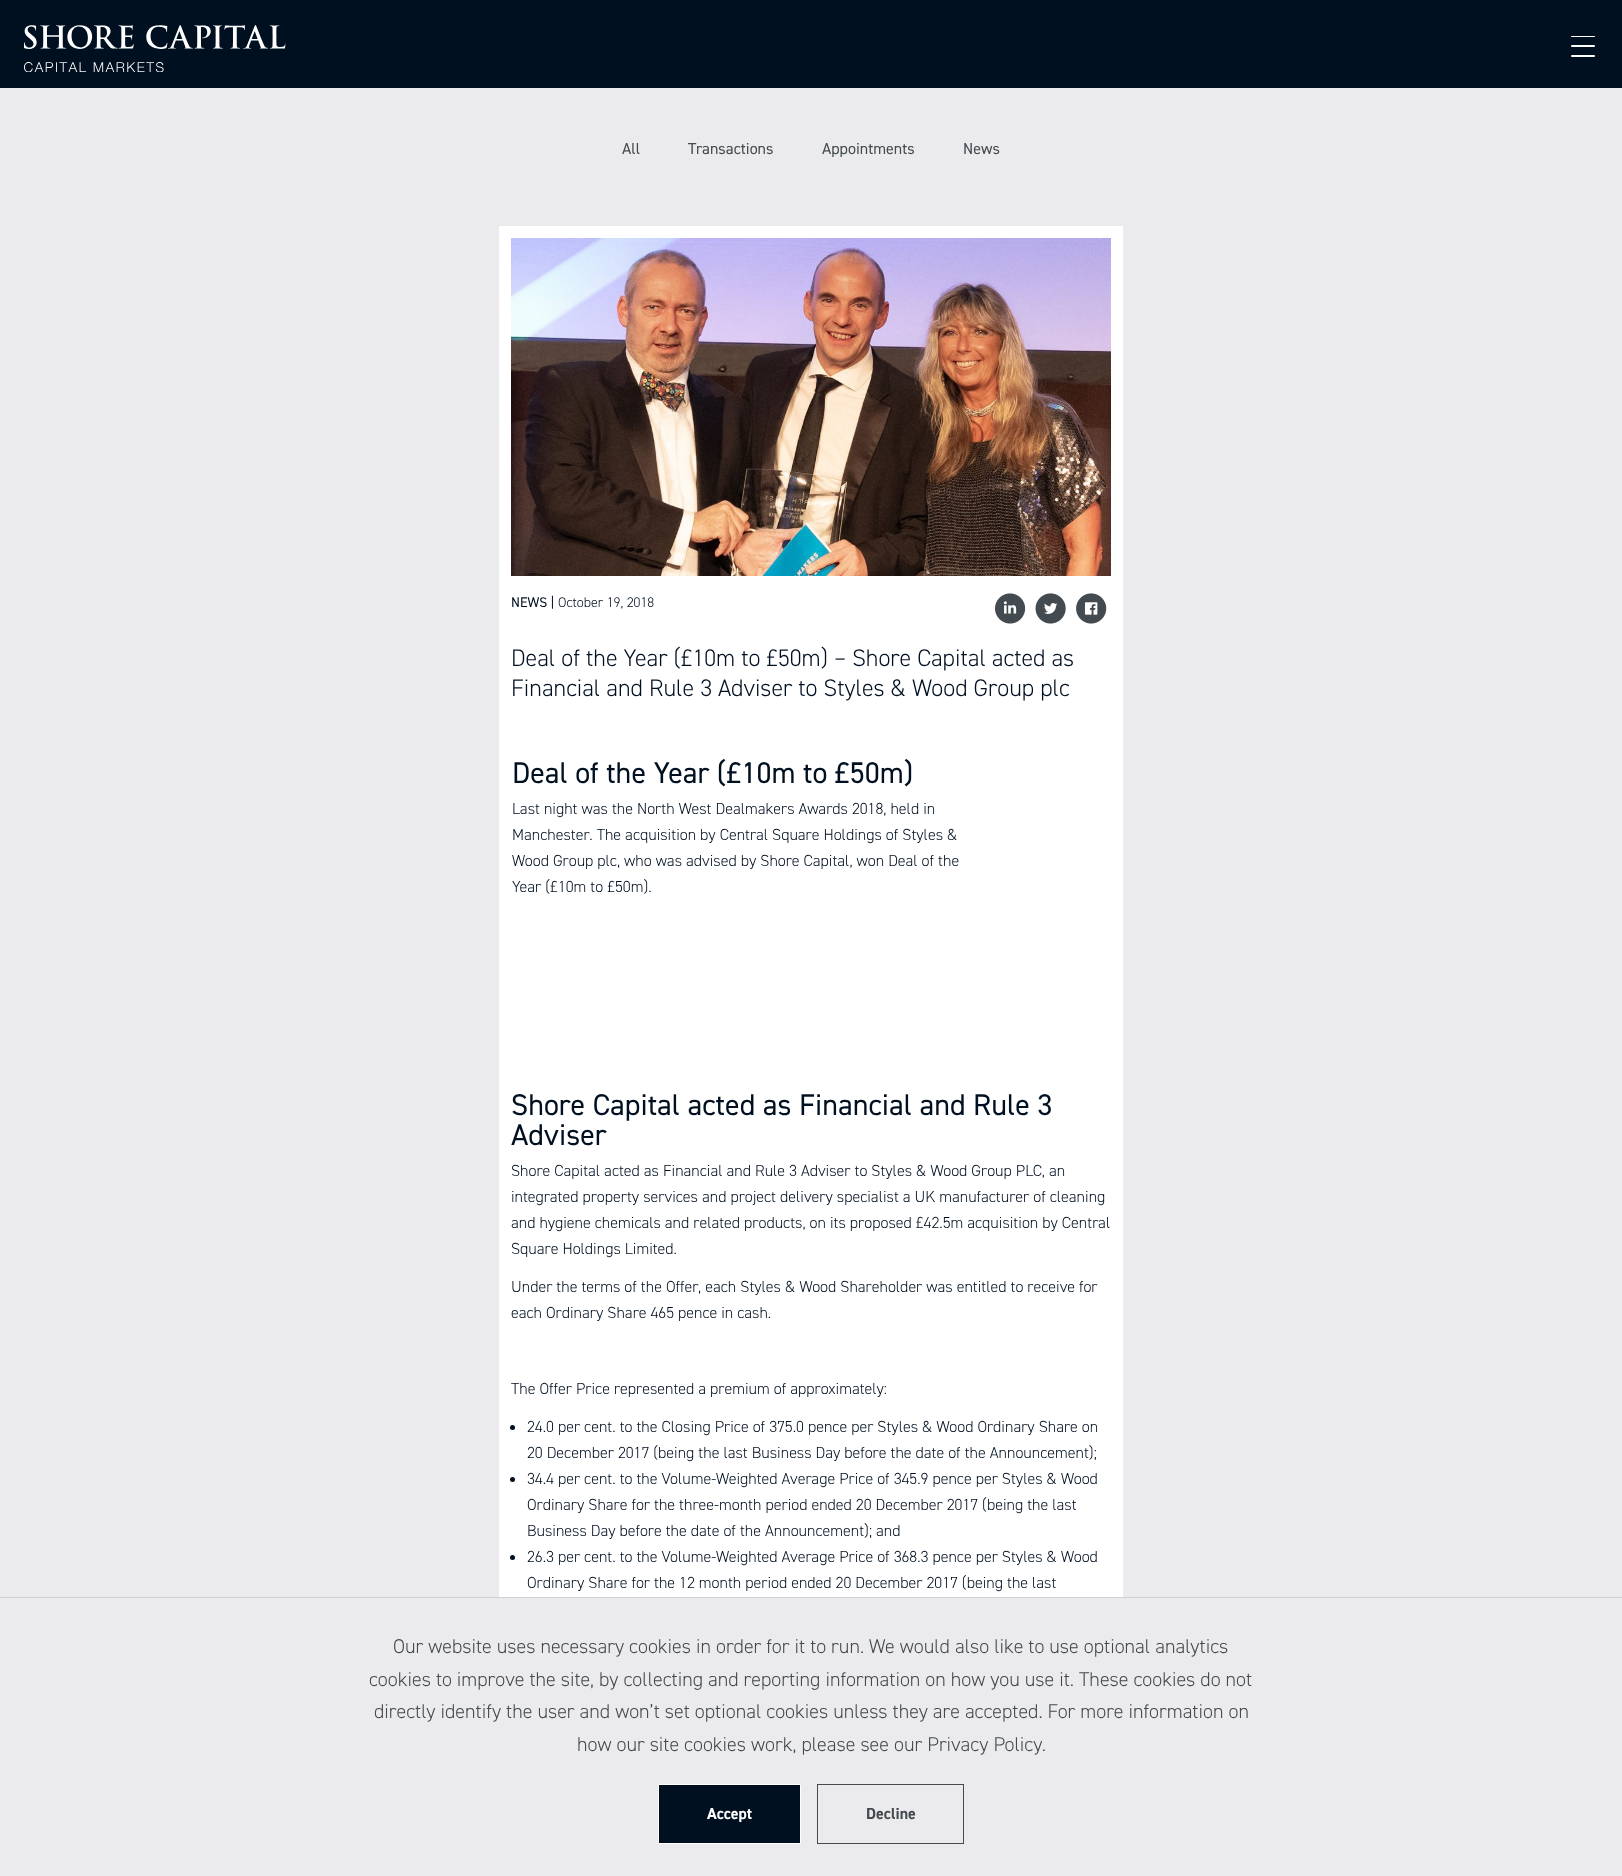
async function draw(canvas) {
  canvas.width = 1622
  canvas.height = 1876
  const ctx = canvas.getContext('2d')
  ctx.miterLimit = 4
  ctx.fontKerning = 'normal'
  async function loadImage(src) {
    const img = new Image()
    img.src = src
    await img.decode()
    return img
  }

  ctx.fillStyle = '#ebebed'
  ctx.fillRect(0, 0, 1622, 1876)
  ctx.fillStyle = '#001020'
  ctx.fillRect(0, 0, 1622, 88)
  ctx.drawImage(await loadImage('image0.png'), 24, 25, 262, 47)
  ctx.fillStyle = '#fff'
  ctx.beginPath()
  ctx.roundRect(1571, 45, 24, 2, 1)
  ctx.fill()
  ctx.beginPath()
  ctx.roundRect(1571, 36, 24, 1, 0.5)
  ctx.fill()
  ctx.beginPath()
  ctx.roundRect(1571, 55, 24, 2, 1)
  ctx.fill()
  ctx.font = '16px "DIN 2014"'
  ctx.fillStyle = '#444a4f'
  ctx.fillText('All', 622, 154)
  ctx.fillText('Transactions', 688, 154)
  ctx.fillText('Appointments', 822, 154)
  ctx.fillText('News', 963, 154)
  ctx.fillStyle = '#fff'
  ctx.fillRect(499, 226, 624, 1371)
  ctx.drawImage(await loadImage('image1.png'), 511, 238, 600, 338)
  ctx.font = '14px "DIN 2014"'
  ctx.fillStyle = '#001020'
  ctx.fillText('NEWS |', 511, 607)
  ctx.font = '300 14px "DIN 2014"'
  ctx.fillText('October 19, 2018', 558, 607)
  ctx.drawImage(await loadImage('image2.png'), 995, 593, 31, 31)
  ctx.drawImage(await loadImage('image3.png'), 1035, 593, 31, 31)
  ctx.drawImage(await loadImage('image4.png'), 1076, 593, 31, 31)
  ctx.font = '300 24px "DIN 2014"'
  ctx.fillText('Deal of the Year (£10m to £50m) – Shore Capital acted as', 511, 666)
  ctx.fillText('Financial and Rule 3 Adviser to Styles & Wood Group plc', 511, 696)
  ctx.font = '30px "DIN 2014"'
  ctx.fillText('Deal of the Year (£10m to £50m)', 512, 783)
  ctx.font = '300 16px "DIN 2014"'
  ctx.fillText('Last night was the North West Dealmakers Awards 2018, held in', 512, 814)
  ctx.fillText('Manchester. The acquisition by Central Square Holdings of Styles &', 512, 840)
  ctx.fillText('Wood Group plc, who was advised by Shore Capital, won Deal of the', 512, 866)
  ctx.fillText('Year (£10m to £50m).', 512, 892)
  ctx.font = '30px "DIN 2014"'
  ctx.fillText('Shore Capital acted as Financial and Rule 3', 511, 1115)
  ctx.fillText('Adviser', 511, 1145)
  ctx.font = '300 16px "DIN 2014"'
  ctx.fillText('Shore Capital acted as Financial and Rule 3 Adviser to Styles & Wood Group PLC, an', 511, 1176)
  ctx.fillText('integrated property services and project delivery specialist a UK manufacturer of cleaning', 511, 1202)
  ctx.fillText('and hygiene chemicals and related products, on its proposed £42.5m acquisition by Central', 511, 1228)
  ctx.fillText('Square Holdings Limited.', 511, 1254)
  ctx.fillText('Under the terms of the Offer, each Styles & Wood Shareholder was entitled to receive for', 511, 1292)
  ctx.fillText('each Ordinary Share 465 pence in cash.', 511, 1318)
  ctx.fillText('The Offer Price represented a premium of approximately:', 511, 1394)
  ctx.beginPath()
  ctx.arc(512.5, 1427.5, 2.5, 0, 2 * Math.PI)
  ctx.fill()
  ctx.fillText('24.0 per cent. to the Closing Price of 375.0 pence per Styles & Wood Ordinary Share on', 527, 1432)
  ctx.fillText('20 December 2017 (being the last Business Day before the date of the Announcement);', 527, 1458)
  ctx.beginPath()
  ctx.arc(512.5, 1479.5, 2.5, 0, 2 * Math.PI)
  ctx.fill()
  ctx.fillText('34.4 per cent. to the Volume-Weighted Average Price of 345.9 pence per Styles & Wood', 527, 1484)
  ctx.fillText('Ordinary Share for the three-month period ended 20 December 2017 (being the last', 527, 1510)
  ctx.fillText('Business Day before the date of the Announcement); and', 527, 1536)
  ctx.beginPath()
  ctx.arc(512.5, 1557.5, 2.5, 0, 2 * Math.PI)
  ctx.fill()
  ctx.fillText('26.3 per cent. to the Volume-Weighted Average Price of 368.3 pence per Styles & Wood', 527, 1562)
  ctx.fillText('Ordinary Share for the 12 month period ended 20 December 2017 (being the last', 527, 1588)
  ctx.fillStyle = '#d0d1d6'
  ctx.fillRect(0, 1597, 1622, 1)
  ctx.font = '300 20px "DIN 2014"'
  ctx.fillStyle = '#444a4f'
  ctx.fillText('Our website uses necessary cookies in order for it to run. We would also like to use optional analytics', 393, 1653)
  ctx.fillText('cookies to improve the site, by collecting and reporting information on how you use it. These cookies do not', 369, 1686)
  ctx.fillText('directly identify the user and won’t set optional cookies unless they are accepted. For more information on', 374, 1718)
  ctx.fillText('how our site cookies work, please see our Privacy Policy.', 577, 1751)
  ctx.fillStyle = '#001020'
  ctx.beginPath()
  ctx.rect(658.5, 1784.5, 142, 59)
  ctx.fill()
  ctx.strokeStyle = '#fff'
  ctx.stroke()
  ctx.font = 'bold 16px "DIN 2014"'
  ctx.fillStyle = '#fff'
  ctx.fillText('Accept', 707, 1819)
  ctx.strokeStyle = '#444a4f'
  ctx.strokeRect(817.5, 1784.5, 146, 59)
  ctx.fillStyle = '#444a4f'
  ctx.fillText('Decline', 866, 1819)
}

draw(document.querySelector('canvas'))
